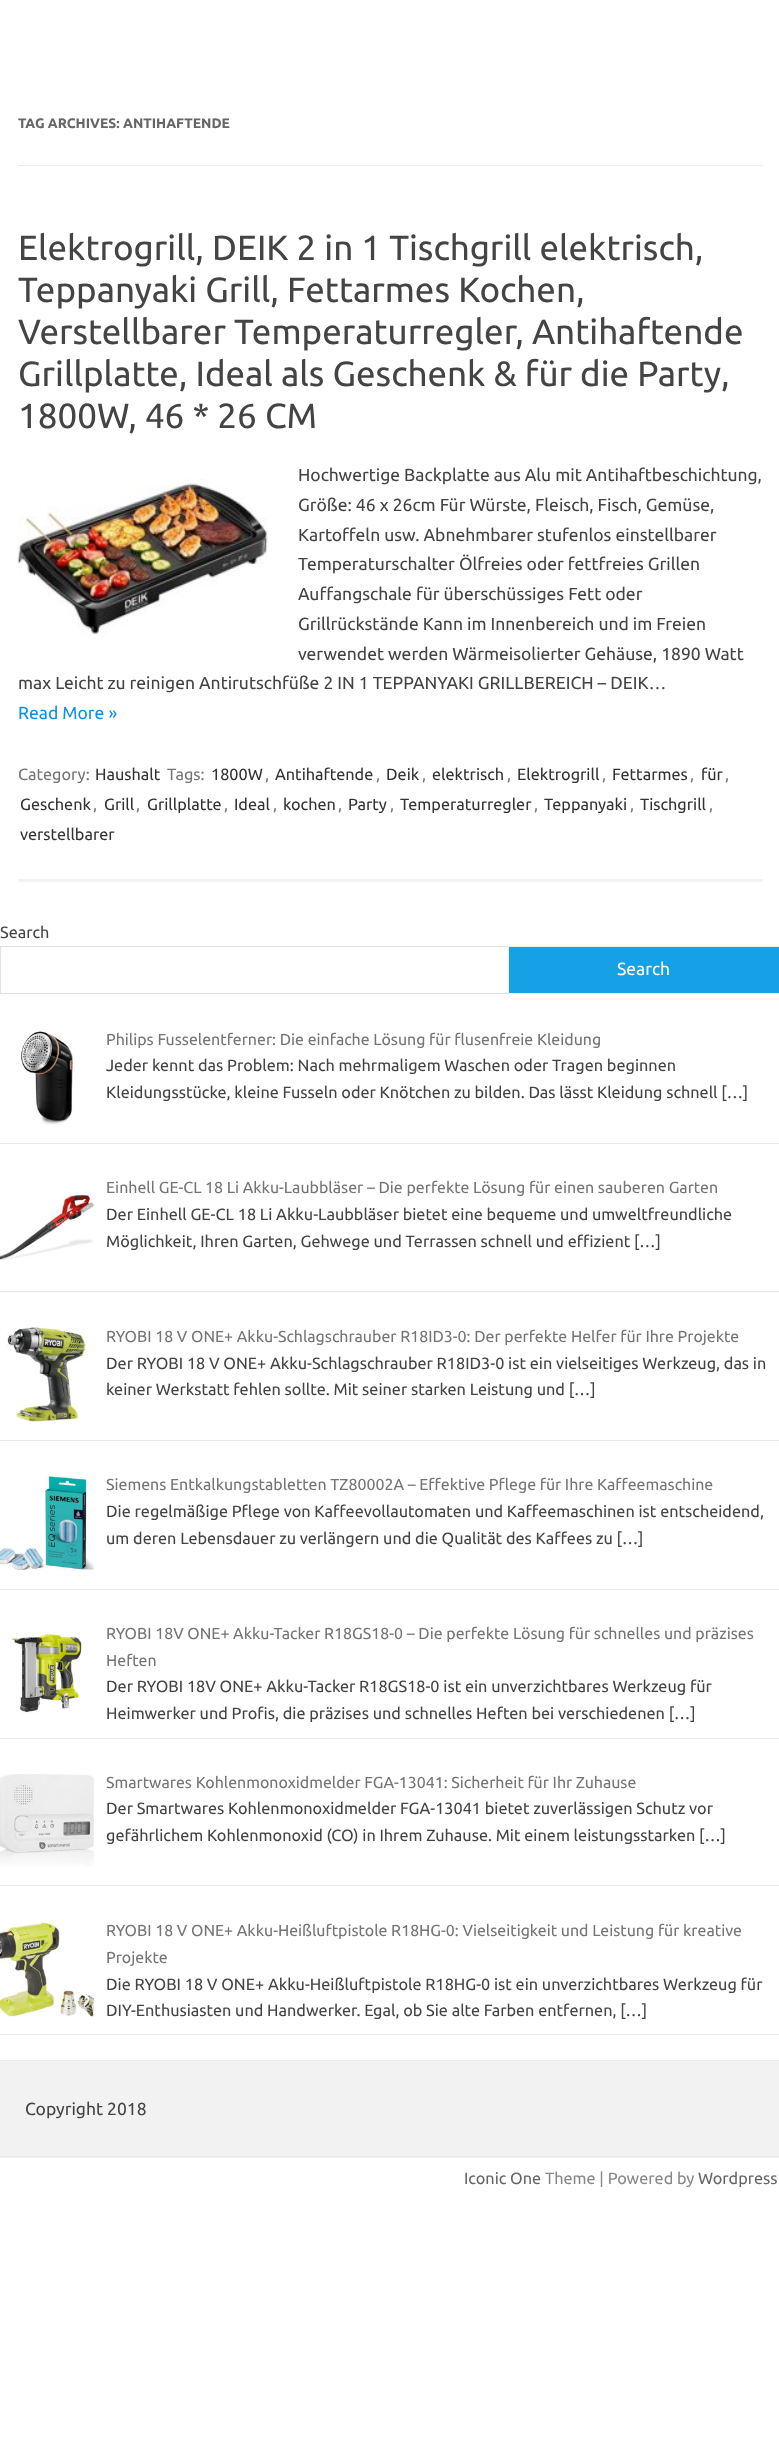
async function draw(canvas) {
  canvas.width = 779
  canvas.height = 2460
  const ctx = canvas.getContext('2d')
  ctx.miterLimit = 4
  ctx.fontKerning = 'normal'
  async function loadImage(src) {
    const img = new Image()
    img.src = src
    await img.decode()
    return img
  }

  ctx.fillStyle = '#fff'
  ctx.fillRect(0, 0, 779, 2460)
  ctx.fillStyle = '#ededed'
  ctx.fillRect(18, 165, 745, 1)
  ctx.font = 'bold 13.75px Ubuntu'
  ctx.fillStyle = '#666'
  ctx.fillText('TAG ARCHIVES: ANTIHAFTENDE', 18, 128)
  ctx.fillStyle = '#f3f3f3'
  ctx.fillRect(18, 879, 745, 3)
  ctx.font = '35px Ubuntu'
  ctx.fillStyle = '#444'
  ctx.fillText('Elektrogrill, DEIK 2 in 1 Tischgrill elektrisch,', 18, 260)
  ctx.fillText('Teppanyaki Grill, Fettarmes Kochen,', 18, 302)
  ctx.fillText('Verstellbarer Temperaturregler, Antihaftende', 18, 344)
  ctx.fillText('Grillplatte, Ideal als Geschenk & für die Party,', 18, 386)
  ctx.fillText('1800W, 46 * 26 CM', 18, 428)
  ctx.font = '17.5px Ubuntu'
  ctx.fillText('Hochwertige Backplatte aus Alu mit Antihaftbeschichtung,', 298, 481)
  ctx.fillText('Größe: 46 x 26cm Für Würste, Fleisch, Fisch, Gemüse,', 298, 511)
  ctx.fillText('Kartoffeln usw. Abnehmbarer stufenlos einstellbarer', 298, 541)
  ctx.fillText('Temperaturschalter Ölfreies oder fettfreies Grillen', 298, 570)
  ctx.fillText('Auffangschale für überschüssiges Fett oder', 298, 600)
  ctx.fillText('Grillrückstände Kann im Innenbereich und im Freien', 298, 630)
  ctx.fillText('verwendet werden Wärmeisolierter Gehäuse, 1890 Watt', 298, 660)
  ctx.fillText('max Leicht zu reinigen Antirutschfüße 2 IN 1 TEPPANYAKI GRILLBEREICH – DEIK…', 18, 689)
  ctx.fillStyle = '#0b91ea'
  ctx.fillText('Read More »', 18, 719)
  ctx.drawImage(await loadImage('image0.png'), 17, 479, 251, 157)
  ctx.font = '16.25px Ubuntu'
  ctx.fillStyle = '#757575'
  ctx.fillText('Category:', 18, 780)
  ctx.fillStyle = '#333'
  ctx.fillText('Haushalt', 95, 780)
  ctx.fillStyle = '#757575'
  ctx.fillText('Tags:', 167, 780)
  ctx.fillStyle = '#333'
  ctx.fillText('1800W', 211, 780)
  ctx.fillStyle = '#757575'
  ctx.fillText(',', 265, 780)
  ctx.fillStyle = '#333'
  ctx.fillText('Antihaftende', 275, 780)
  ctx.fillStyle = '#757575'
  ctx.fillText(',', 376, 780)
  ctx.fillStyle = '#333'
  ctx.fillText('Deik', 386, 780)
  ctx.fillStyle = '#757575'
  ctx.fillText(',', 422, 780)
  ctx.fillStyle = '#333'
  ctx.fillText('elektrisch', 432, 780)
  ctx.fillStyle = '#757575'
  ctx.fillText(',', 507, 780)
  ctx.fillStyle = '#333'
  ctx.fillText('Elektrogrill', 517, 780)
  ctx.fillStyle = '#757575'
  ctx.fillText(',', 602, 780)
  ctx.fillStyle = '#333'
  ctx.fillText('Fettarmes', 612, 780)
  ctx.fillStyle = '#757575'
  ctx.fillText(',', 690, 780)
  ctx.fillStyle = '#333'
  ctx.fillText('für', 701, 780)
  ctx.fillStyle = '#757575'
  ctx.fillText(',', 725, 780)
  ctx.fillStyle = '#333'
  ctx.fillText('Geschenk', 20, 810)
  ctx.fillStyle = '#757575'
  ctx.fillText(',', 93, 810)
  ctx.fillStyle = '#333'
  ctx.fillText('Grill', 104, 810)
  ctx.fillStyle = '#757575'
  ctx.fillText(',', 136, 810)
  ctx.fillStyle = '#333'
  ctx.fillText('Grillplatte', 147, 810)
  ctx.fillStyle = '#757575'
  ctx.fillText(',', 224, 810)
  ctx.fillStyle = '#333'
  ctx.fillText('Ideal', 234, 810)
  ctx.fillStyle = '#757575'
  ctx.fillText(',', 273, 810)
  ctx.fillStyle = '#333'
  ctx.fillText('kochen', 283, 810)
  ctx.fillStyle = '#757575'
  ctx.fillText(',', 338, 810)
  ctx.fillStyle = '#333'
  ctx.fillText('Party', 348, 810)
  ctx.fillStyle = '#757575'
  ctx.fillText(',', 390, 810)
  ctx.fillStyle = '#333'
  ctx.fillText('Temperaturregler', 400, 810)
  ctx.fillStyle = '#757575'
  ctx.fillText(',', 534, 810)
  ctx.fillStyle = '#333'
  ctx.fillText('Teppanyaki', 544, 810)
  ctx.fillStyle = '#757575'
  ctx.fillText(',', 630, 810)
  ctx.fillStyle = '#333'
  ctx.fillText('Tischgrill', 640, 810)
  ctx.fillStyle = '#757575'
  ctx.fillText(',', 709, 810)
  ctx.fillStyle = '#333'
  ctx.fillText('verstellbarer', 20, 840)
  ctx.fillStyle = '#444'
  ctx.fillText('Search', 0, 938)
  ctx.strokeStyle = '#e1e1e1'
  ctx.strokeRect(0.5, 946.5, 508, 47)
  ctx.fillStyle = '#16a1e7'
  ctx.beginPath()
  ctx.rect(508.5, 946.5, 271, 47)
  ctx.fill()
  ctx.strokeStyle = '#f1f1f1'
  ctx.stroke()
  ctx.font = '17.5px Ubuntu'
  ctx.fillStyle = '#fff'
  ctx.fillText('Search', 617, 975)
  ctx.fillStyle = '#e9e9e9'
  ctx.fillRect(0, 1143, 779, 1)
  ctx.drawImage(await loadImage('image1.png'), 20, 1031, 55, 94)
  ctx.font = '15.95px Ubuntu'
  ctx.fillStyle = '#757575'
  ctx.fillText('Philips Fusselentferner: Die einfache Lösung für flusenfreie Kleidung', 106, 1045)
  ctx.font = '16.25px Ubuntu'
  ctx.fillStyle = '#444'
  ctx.fillText('Jeder kennt das Problem: Nach mehrmaligem Waschen oder Tragen beginnen', 106, 1071)
  ctx.fillText('Kleidungsstücke, kleine Fusseln oder Knötchen zu bilden. Das lässt Kleidung schnell […]', 106, 1098)
  ctx.fillStyle = '#e9e9e9'
  ctx.fillRect(0, 1291, 779, 1)
  ctx.font = '15.95px Ubuntu'
  ctx.fillStyle = '#757575'
  ctx.fillText('Einhell GE-CL 18 Li Akku-Laubbläser – Die perfekte Lösung für einen sauberen Garten', 106, 1193)
  ctx.drawImage(await loadImage('image2.png'), 0, 1194, 94, 66)
  ctx.font = '16.25px Ubuntu'
  ctx.fillStyle = '#444'
  ctx.fillText('Der Einhell GE-CL 18 Li Akku-Laubbläser bietet eine bequeme und umweltfreundliche', 106, 1220)
  ctx.fillText('Möglichkeit, Ihren Garten, Gehwege und Terrassen schnell und effizient […]', 106, 1247)
  ctx.fillStyle = '#e9e9e9'
  ctx.fillRect(0, 1440, 779, 1)
  ctx.drawImage(await loadImage('image3.png'), 6, 1327, 82, 95)
  ctx.font = '15.95px Ubuntu'
  ctx.fillStyle = '#757575'
  ctx.fillText('RYOBI 18 V ONE+ Akku-Schlagschrauber R18ID3-0: Der perfekte Helfer für Ihre Projekte', 106, 1342)
  ctx.font = '16.25px Ubuntu'
  ctx.fillStyle = '#444'
  ctx.fillText('Der RYOBI 18 V ONE+ Akku-Schlagschrauber R18ID3-0 ist ein vielseitiges Werkzeug, das in', 106, 1369)
  ctx.fillText('keiner Werkstatt fehlen sollte. Mit seiner starken Leistung und […]', 106, 1395)
  ctx.fillStyle = '#e9e9e9'
  ctx.fillRect(0, 1589, 779, 1)
  ctx.drawImage(await loadImage('image4.png'), 0, 1476, 94, 94)
  ctx.font = '15.95px Ubuntu'
  ctx.fillStyle = '#757575'
  ctx.fillText('Siemens Entkalkungstabletten TZ80002A – Effektive Pflege für Ihre Kaffeemaschine', 106, 1490)
  ctx.font = '16.25px Ubuntu'
  ctx.fillStyle = '#444'
  ctx.fillText('Die regelmäßige Pflege von Kaffeevollautomaten und Kaffeemaschinen ist entscheidend,', 106, 1517)
  ctx.fillText('um deren Lebensdauer zu verlängern und die Qualität des Kaffees zu […]', 106, 1544)
  ctx.fillStyle = '#e9e9e9'
  ctx.fillRect(0, 1738, 779, 1)
  ctx.drawImage(await loadImage('image5.png'), 10, 1631, 72, 83)
  ctx.font = '15.95px Ubuntu'
  ctx.fillStyle = '#757575'
  ctx.fillText('RYOBI 18V ONE+ Akku-Tacker R18GS18-0 – Die perfekte Lösung für schnelles und präzises', 106, 1639)
  ctx.fillText('Heften', 106, 1666)
  ctx.font = '16.25px Ubuntu'
  ctx.fillStyle = '#444'
  ctx.fillText('Der RYOBI 18V ONE+ Akku-Tacker R18GS18-0 ist ein unverzichtbares Werkzeug für', 106, 1692)
  ctx.fillText('Heimwerker und Profis, die präzises und schnelles Heften bei verschiedenen […]', 106, 1719)
  ctx.fillStyle = '#e9e9e9'
  ctx.fillRect(0, 1885, 779, 1)
  ctx.drawImage(await loadImage('image6.png'), 0, 1774, 94, 93)
  ctx.font = '15.95px Ubuntu'
  ctx.fillStyle = '#757575'
  ctx.fillText('Smartwares Kohlenmonoxidmelder FGA-13041: Sicherheit für Ihr Zuhause', 106, 1788)
  ctx.font = '16.25px Ubuntu'
  ctx.fillStyle = '#444'
  ctx.fillText('Der Smartwares Kohlenmonoxidmelder FGA-13041 bietet zuverlässigen Schutz vor', 106, 1814)
  ctx.fillText('gefährlichem Kohlenmonoxid (CO) in Ihrem Zuhause. Mit einem leistungsstarken […]', 106, 1841)
  ctx.fillStyle = '#e9e9e9'
  ctx.fillRect(0, 2034, 779, 1)
  ctx.drawImage(await loadImage('image7.png'), 0, 1922, 94, 95)
  ctx.font = '15.95px Ubuntu'
  ctx.fillStyle = '#757575'
  ctx.fillText('RYOBI 18 V ONE+ Akku-Heißluftpistole R18HG-0: Vielseitigkeit und Leistung für kreative', 106, 1936)
  ctx.fillText('Projekte', 106, 1963)
  ctx.font = '16.25px Ubuntu'
  ctx.fillStyle = '#444'
  ctx.fillText('Die RYOBI 18 V ONE+ Akku-Heißluftpistole R18HG-0 ist ein unverzichtbares Werkzeug für', 106, 1990)
  ctx.fillText('DIY-Enthusiasten und Handwerker. Egal, ob Sie alte Farben entfernen, […]', 106, 2016)
  ctx.fillStyle = '#f2f2f2'
  ctx.fillRect(0, 2061, 779, 97)
  ctx.fillStyle = '#ededed'
  ctx.fillRect(0, 2060, 779, 1)
  ctx.fillStyle = '#e9e9e9'
  ctx.fillRect(0, 2156, 779, 1)
  ctx.font = '17.5px Ubuntu'
  ctx.fillStyle = '#444'
  ctx.fillText('Copyright 2018', 25, 2115)
  ctx.font = '16.25px Ubuntu'
  ctx.fillStyle = '#666'
  ctx.fillText('Iconic One', 464, 2184)
  ctx.fillStyle = '#888'
  ctx.fillText('Theme | Powered by', 545, 2184)
  ctx.fillStyle = '#666'
  ctx.fillText('Wordpress', 698, 2184)
}

draw(document.querySelector('canvas'))
